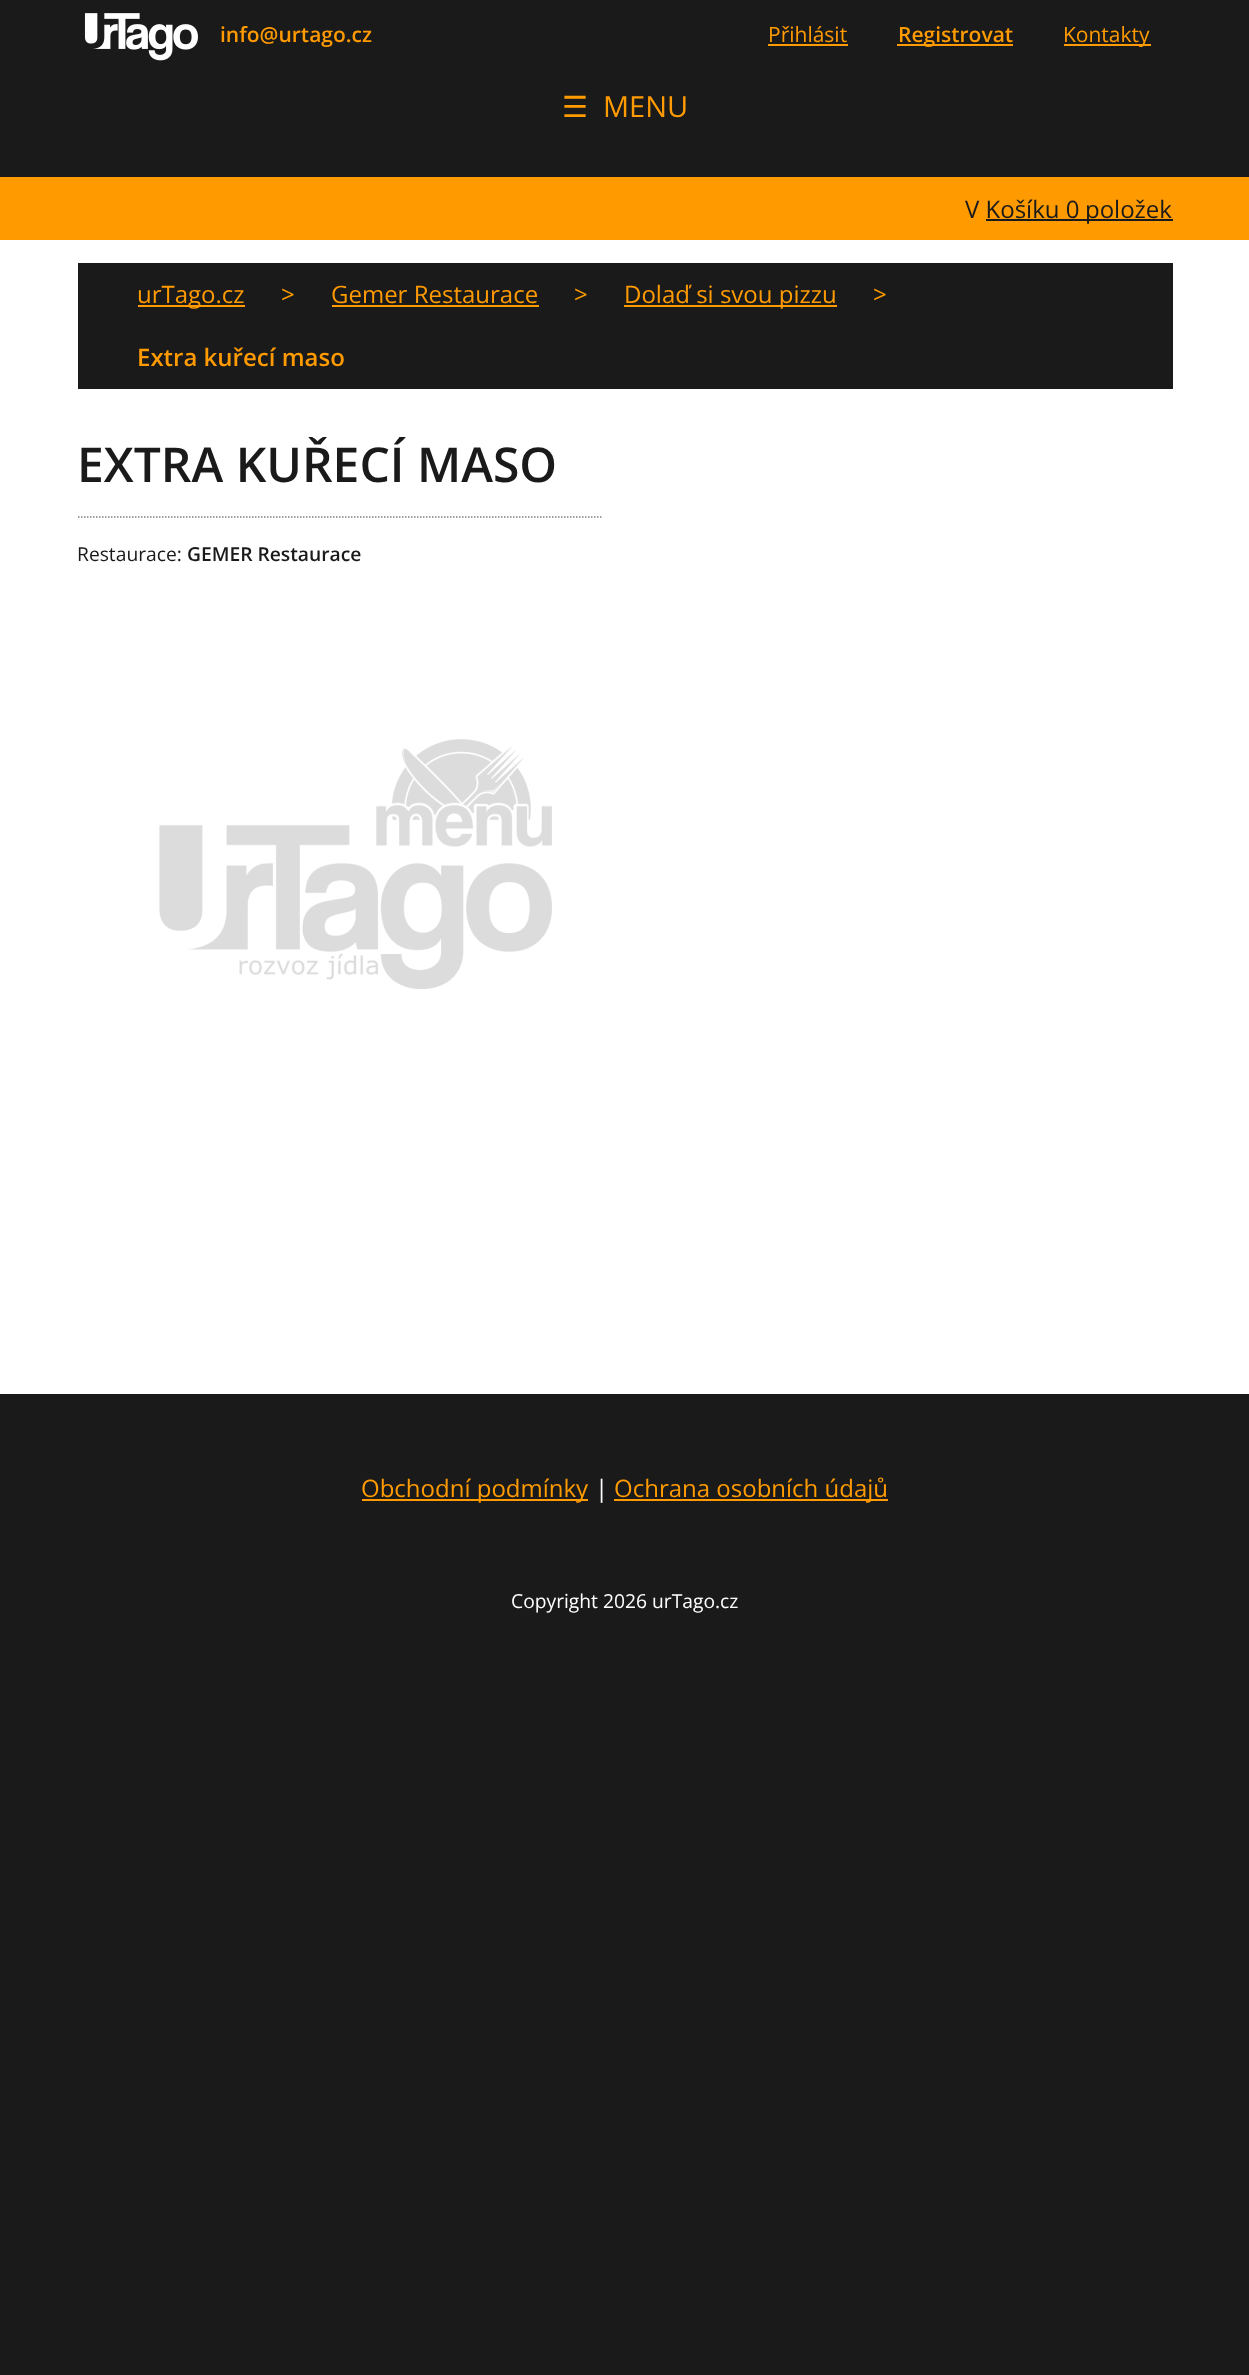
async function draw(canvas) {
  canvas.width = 1249
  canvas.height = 2375
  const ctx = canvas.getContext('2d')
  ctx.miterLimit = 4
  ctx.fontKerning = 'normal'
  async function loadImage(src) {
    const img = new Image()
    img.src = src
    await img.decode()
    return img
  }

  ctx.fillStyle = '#1a1a1a'
  ctx.fillRect(0, 0, 1249, 2375)
  ctx.drawImage(await loadImage('image0.png'), 84, 13, 114, 48)
  ctx.font = '600 21px Open Sans'
  ctx.fillStyle = '#ff9b00'
  ctx.fillText('info@urtago.cz', 220, 42)
  ctx.font = '21px Open Sans'
  ctx.fillText('Přihlásit', 768, 42)
  ctx.fillRect(768, 44, 80, 2)
  ctx.fillRect(897, 44, 116, 2)
  ctx.font = '600 21px Open Sans'
  ctx.fillText('Registrovat', 898, 42)
  ctx.fillRect(1064, 44, 87, 2)
  ctx.font = '21px Open Sans'
  ctx.fillText('Kontakty', 1063, 42)
  ctx.font = '29px DejaVu Sans'
  ctx.fillText('☰', 562, 117)
  ctx.font = '29px Open Sans'
  ctx.fillText('MENU', 603, 117)
  ctx.fillRect(0, 177, 1249, 63)
  ctx.font = '24px Open Sans'
  ctx.fillStyle = '#1a1a1a'
  ctx.fillText('V Košíku 0', 965, 218)
  ctx.fillRect(986, 219, 187, 2)
  ctx.fillText('položek', 1085, 218)
  ctx.fillStyle = '#fff'
  ctx.fillRect(0, 240, 1249, 1154)
  ctx.fillStyle = '#1a1a1a'
  ctx.fillRect(78, 263, 1095, 126)
  ctx.fillStyle = '#ff9b00'
  ctx.fillRect(138, 305, 107, 2)
  ctx.fillText('urTago.cz', 137, 303)
  ctx.fillText('>', 281, 303)
  ctx.fillText('Gemer Restaurace', 331, 303)
  ctx.fillRect(332, 305, 207, 2)
  ctx.fillText('>', 574, 303)
  ctx.fillRect(624, 305, 213, 2)
  ctx.fillText('Dolaď si svou pizzu', 624, 303)
  ctx.fillText('>', 873, 303)
  ctx.font = '600 24px Open Sans'
  ctx.fillText('Extra kuřecí maso', 137, 366)
  ctx.beginPath()
  ctx.moveTo(78, 517)
  ctx.lineTo(603, 517)
  ctx.strokeStyle = '#808080'
  ctx.lineWidth = 1.5
  ctx.setLineDash([1.5, 1.5])
  ctx.stroke()
  ctx.font = '600 48px Open Sans'
  ctx.fillStyle = '#1a1a1a'
  ctx.fillText('EXTRA KUŘECÍ MASO', 77, 482)
  ctx.font = '19.25px Open Sans'
  ctx.fillText('Restaurace:', 77, 561)
  ctx.font = '600 19.25px Open Sans'
  ctx.fillText('GEMER Restaurace', 187, 561)
  ctx.drawImage(await loadImage('image1.png'), 159, 739, 393, 250)
  ctx.fillStyle = '#ff9b00'
  ctx.fillRect(362, 1499, 226, 2)
  ctx.font = '24px Open Sans'
  ctx.fillText('Obchodní podmínky', 361, 1497)
  ctx.fillStyle = '#fff'
  ctx.fillText('|', 595, 1497)
  ctx.fillStyle = '#ff9b00'
  ctx.fillRect(614, 1499, 274, 2)
  ctx.fillText('Ochrana osobních údajů', 614, 1497)
  ctx.font = '19.25px Open Sans'
  ctx.fillStyle = '#fff'
  ctx.fillText('Copyright 2026 urTago.cz', 511, 1608)
}

draw(document.querySelector('canvas'))
